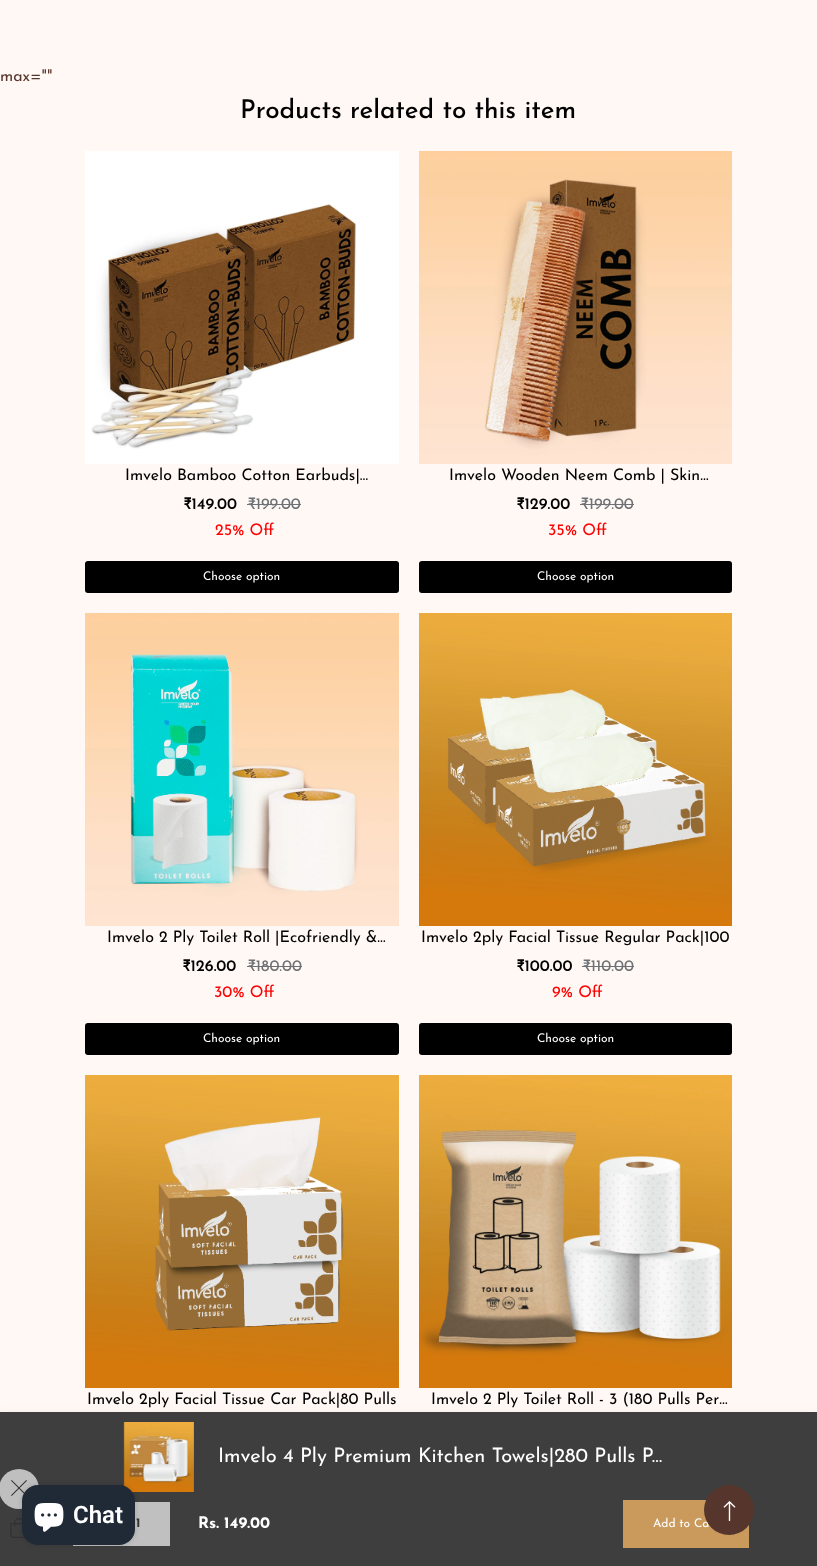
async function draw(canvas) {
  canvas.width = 817
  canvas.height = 1566
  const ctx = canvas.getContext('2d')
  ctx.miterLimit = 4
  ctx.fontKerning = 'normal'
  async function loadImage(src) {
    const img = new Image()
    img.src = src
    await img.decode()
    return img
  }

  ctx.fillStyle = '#fff8f4'
  ctx.fillRect(0, 0, 817, 1566)
  ctx.font = '16px Josefin Sans'
  ctx.fillStyle = '#56362c'
  ctx.fillText('max=""', 0, 81)
  ctx.font = '500 26px Josefin Sans'
  ctx.fillStyle = '#000'
  ctx.fillText('Products related to this item', 240, 118)
  ctx.drawImage(await loadImage('image0.png'), 85, 151, 314, 313)
  ctx.font = '16px Josefin Sans'
  ctx.fillText('Imvelo Bamboo Cotton Earbuds|…', 125, 480)
  ctx.font = '600 16px Josefin Sans'
  ctx.fillText('₹149.00', 183, 509)
  ctx.font = '16px Josefin Sans'
  ctx.fillStyle = '#6d7175'
  ctx.fillText('₹199.00', 247, 509)
  ctx.fillRect(247, 504, 54, 1)
  ctx.fillStyle = '#f00'
  ctx.fillText('25% Off', 215, 535)
  ctx.fillStyle = '#000'
  ctx.beginPath()
  ctx.roundRect(85, 561, 314, 32, 3)
  ctx.fill()
  ctx.font = '12px Josefin Sans'
  ctx.fillStyle = '#fff'
  ctx.fillText('Choose option', 203, 580)
  ctx.drawImage(await loadImage('image1.png'), 419, 151, 313, 313)
  ctx.font = '16px Josefin Sans'
  ctx.fillStyle = '#000'
  ctx.fillText('Imvelo Wooden Neem Comb | Skin…', 449, 480)
  ctx.font = '600 16px Josefin Sans'
  ctx.fillText('₹129.00', 516, 509)
  ctx.font = '16px Josefin Sans'
  ctx.fillStyle = '#6d7175'
  ctx.fillText('₹199.00', 580, 509)
  ctx.fillRect(580, 504, 54, 1)
  ctx.fillStyle = '#f00'
  ctx.fillText('35% Off', 548, 535)
  ctx.fillStyle = '#000'
  ctx.beginPath()
  ctx.roundRect(419, 561, 313, 32, 3)
  ctx.fill()
  ctx.font = '12px Josefin Sans'
  ctx.fillStyle = '#fff'
  ctx.fillText('Choose option', 537, 580)
  ctx.drawImage(await loadImage('image2.png'), 85, 613, 314, 313)
  ctx.font = '16px Josefin Sans'
  ctx.fillStyle = '#000'
  ctx.fillText('Imvelo 2 Ply Toilet Roll |Ecofriendly &…', 107, 942)
  ctx.font = '600 16px Josefin Sans'
  ctx.fillText('₹126.00', 182, 971)
  ctx.font = '16px Josefin Sans'
  ctx.fillStyle = '#6d7175'
  ctx.fillText('₹180.00', 247, 971)
  ctx.fillRect(247, 966, 55, 1)
  ctx.fillStyle = '#f00'
  ctx.fillText('30% Off', 214, 997)
  ctx.fillStyle = '#000'
  ctx.beginPath()
  ctx.roundRect(85, 1023, 314, 32, 3)
  ctx.fill()
  ctx.font = '12px Josefin Sans'
  ctx.fillStyle = '#fff'
  ctx.fillText('Choose option', 203, 1042)
  ctx.drawImage(await loadImage('image3.png'), 419, 613, 313, 313)
  ctx.font = '16px Josefin Sans'
  ctx.fillStyle = '#000'
  ctx.fillText('Imvelo 2ply Facial Tissue Regular Pack|100', 421, 942)
  ctx.font = '600 16px Josefin Sans'
  ctx.fillText('₹100.00', 516, 971)
  ctx.font = '16px Josefin Sans'
  ctx.fillStyle = '#6d7175'
  ctx.fillText('₹110.00', 582, 971)
  ctx.fillRect(582, 966, 52, 1)
  ctx.fillStyle = '#f00'
  ctx.fillText('9% Off', 552, 997)
  ctx.fillStyle = '#000'
  ctx.beginPath()
  ctx.roundRect(419, 1023, 313, 32, 3)
  ctx.fill()
  ctx.font = '12px Josefin Sans'
  ctx.fillStyle = '#fff'
  ctx.fillText('Choose option', 537, 1042)
  ctx.drawImage(await loadImage('image4.png'), 85, 1075, 314, 313)
  ctx.font = '16px Josefin Sans'
  ctx.fillStyle = '#000'
  ctx.fillText('Imvelo 2ply Facial Tissue Car Pack|80 Pulls', 87, 1404)
  ctx.drawImage(await loadImage('image5.png'), 419, 1075, 313, 313)
  ctx.fillText('Imvelo 2 Ply Toilet Roll - 3 (180 Pulls Per…', 431, 1404)
  ctx.fillStyle = '#00000026'
  ctx.filter = 'blur(8px)'
  ctx.beginPath()
  ctx.rect(0, 1420, 817, 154)
  ctx.fill()
  ctx.filter = 'none'
  ctx.fillStyle = '#3e3e3e'
  ctx.fillRect(0, 1412, 817, 154)
  ctx.drawImage(await loadImage('image6.png'), 123, 1422, 71, 70)
  ctx.font = '20px Josefin Sans'
  ctx.fillStyle = '#fff'
  ctx.fillText('Imvelo 4 Ply Premium Kitchen Towels|280 Pulls P…', 218, 1462)
  ctx.fillStyle = '#bfbfbf'
  ctx.beginPath()
  ctx.arc(19, 1489, 20, 0, 2 * Math.PI)
  ctx.fill()
  ctx.drawImage(await loadImage('image7.png'), 11, 1480, 16, 16)
  ctx.drawImage(await loadImage('image8.png'), 10, 1518, 15, 20)
  ctx.fillStyle = '#c0c0c0'
  ctx.fillRect(73, 1502, 97, 44)
  ctx.font = 'bold 13px Josefin Sans'
  ctx.fillStyle = '#333'
  ctx.fillText('1', 136, 1527)
  ctx.font = 'bold 16px Josefin Sans'
  ctx.fillStyle = '#fff'
  ctx.fillText('Rs. 149.00', 198, 1528)
  ctx.fillStyle = '#c99a5c'
  ctx.fillRect(623, 1500, 126, 48)
  ctx.font = '12px Josefin Sans'
  ctx.fillStyle = '#fff'
  ctx.fillText('Add to Ca', 653, 1527)
  ctx.fillStyle = '#00000026'
  ctx.filter = 'blur(2.5px)'
  ctx.beginPath()
  ctx.roundRect(22, 1485, 113, 60, 16)
  ctx.fill()
  ctx.filter = 'none'
  ctx.fillStyle = '#202a36'
  ctx.beginPath()
  ctx.roundRect(22, 1485, 113, 60, 16)
  ctx.fill()
  ctx.drawImage(await loadImage('image9.png'), 34, 1503, 30, 29)
  ctx.font = '600 24px Roboto'
  ctx.fillStyle = '#fff'
  ctx.fillText('Chat', 73, 1523)
  ctx.fillStyle = '#56362c'
  ctx.beginPath()
  ctx.arc(729, 1510, 25, 0, 2 * Math.PI)
  ctx.fill()
  ctx.drawImage(await loadImage('image10.png'), 723, 1501, 13, 20)
}

draw(document.querySelector('canvas'))
